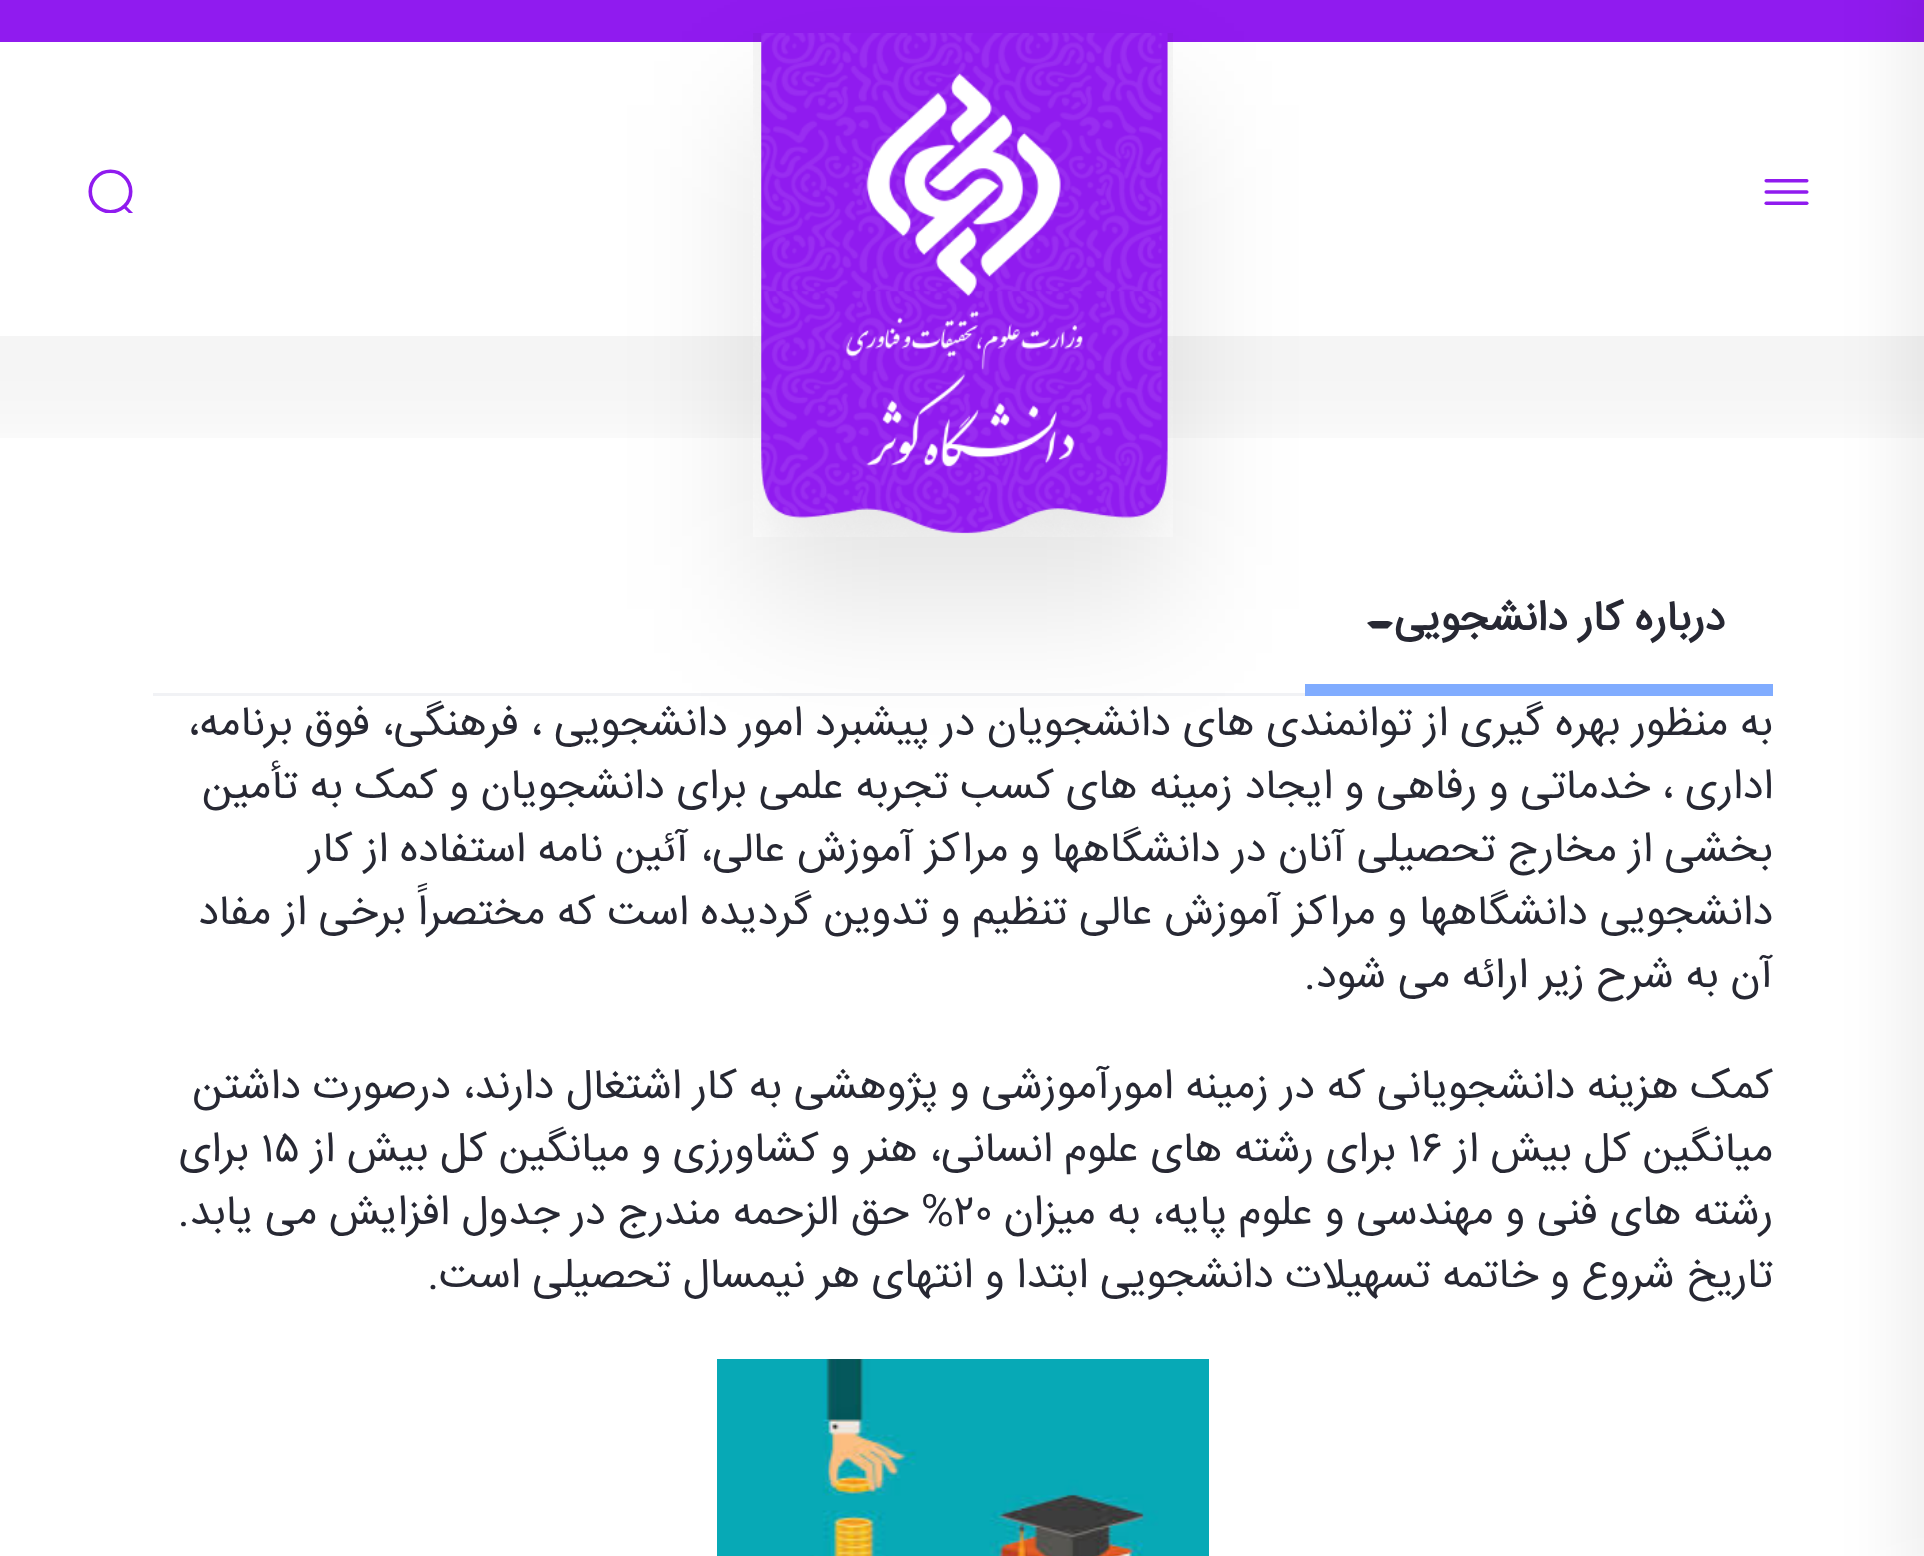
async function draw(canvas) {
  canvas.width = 1924
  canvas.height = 1556
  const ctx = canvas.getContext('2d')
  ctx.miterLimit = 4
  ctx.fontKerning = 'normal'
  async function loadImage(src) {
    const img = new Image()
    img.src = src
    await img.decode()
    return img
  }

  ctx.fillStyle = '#fff'
  ctx.fillRect(0, 0, 1924, 1556)
  ctx.save()
  ctx.beginPath()
  ctx.rect(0, 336, 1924, 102)
  ctx.clip()
  ctx.fillStyle = '#0000000a'
  ctx.filter = 'blur(36px)'
  ctx.beginPath()
  ctx.rect(-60, -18, 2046, 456)
  ctx.fill()
  ctx.filter = 'none'
  ctx.restore()
  ctx.fillStyle = '#901bef'
  ctx.fillRect(0, 0, 1924, 42)
  ctx.drawImage(await loadImage('image0.png'), 1764, 179, 45, 26)
  ctx.fillStyle = '#f1f2f5'
  ctx.fillRect(153, 693, 1152, 3)
  ctx.fillStyle = '#272833'
  ctx.beginPath()
  ctx.moveTo(1372.5, 621)
  ctx.bezierCurveTo(1370.5, 621, 1368.5, 622, 1367, 623)
  ctx.lineTo(1372.5, 628.5)
  ctx.lineTo(1387.5, 628.5)
  ctx.lineTo(1393, 623)
  ctx.bezierCurveTo(1391.5, 622, 1389.5, 621, 1387.5, 621)
  ctx.closePath()
  ctx.fill()
  ctx.fillStyle = '#80acff'
  ctx.fillRect(1305, 684, 468, 12)
  ctx.save()
  ctx.beginPath()
  ctx.moveTo(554, 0)
  ctx.lineTo(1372, 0)
  ctx.lineTo(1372, 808)
  ctx.lineTo(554, 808)
  ctx.closePath()
  ctx.moveTo(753, 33)
  ctx.lineTo(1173, 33)
  ctx.lineTo(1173, 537)
  ctx.lineTo(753, 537)
  ctx.closePath()
  ctx.clip('evenodd')
  ctx.fillStyle = '#0000001a'
  ctx.filter = 'blur(66px)'
  ctx.beginPath()
  ctx.rect(753, 105, 420, 504)
  ctx.fill()
  ctx.filter = 'none'
  ctx.restore()
  ctx.drawImage(await loadImage('image1.png'), 753, 33, 420, 504)
  ctx.drawImage(await loadImage('image2.png'), 88, 169, 45, 44)
  ctx.fillStyle = '#0000000f'
  ctx.filter = 'blur(30px)'
  ctx.beginPath()
  ctx.rect(1896, -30, 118, 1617)
  ctx.fill()
  ctx.filter = 'none'
  ctx.direction = 'rtl'
  ctx.font = 'bold 42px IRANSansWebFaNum'
  ctx.fillStyle = '#272833'
  ctx.fillText('درباره کار دانشجویی', 1725, 630)
  ctx.font = '42px IRANSansWebFaNum'
  ctx.fillText('به منظور بهره گیری از توانمندی های دانشجویان در پیشبرد امور دانشجویی ، فرهنگی، فوق برنامه،', 1773, 735)
  ctx.fillText('اداری ، خدماتی و رفاهی و ایجاد زمینه های کسب تجربه علمی برای دانشجویان و کمک به تأمین', 1773, 798)
  ctx.fillText('بخشی از مخارج تحصیلی آنان در دانشگاهها و مراکز آموزش عالی، آئین نامه استفاده از کار', 1773, 861)
  ctx.fillText('دانشجویی دانشگاهها و مراکز آموزش عالی تنظیم و تدوین گردیده است که مختصراً برخی از مفاد', 1773, 924)
  ctx.fillText('آن به شرح زیر ارائه می شود.', 1773, 987)
  ctx.fillText('کمک هزینه دانشجویانی که در زمینه امورآموزشی و پژوهشی به کار اشتغال دارند، درصورت داشتن', 1773, 1098)
  ctx.fillText('میانگین کل بیش از', 1773, 1161)
  ctx.direction = 'ltr'
  ctx.fillText('۱۶', 1408, 1161)
  ctx.direction = 'rtl'
  ctx.fillText('برای رشته های علوم انسانی، هنر و کشاورزی و میانگین کل بیش از', 1396, 1161)
  ctx.direction = 'ltr'
  ctx.fillText('۱۵', 261, 1161)
  ctx.direction = 'rtl'
  ctx.fillText('برای', 249, 1161)
  ctx.fillText('رشته های فنی و مهندسی و علوم پایه، به میزان', 1773, 1224)
  ctx.direction = 'ltr'
  ctx.fillText('۲۰', 954, 1224)
  ctx.direction = 'rtl'
  ctx.fillText('% حق الزحمه مندرج در جدول افزایش می یابد.', 954, 1224)
  ctx.fillText('تاریخ شروع و خاتمه تسهیلات دانشجویی ابتدا و انتهای هر نیمسال تحصیلی است.', 1773, 1287)
  ctx.drawImage(await loadImage('image3.png'), 717, 1359, 492, 197)
}

draw(document.querySelector('canvas'))
